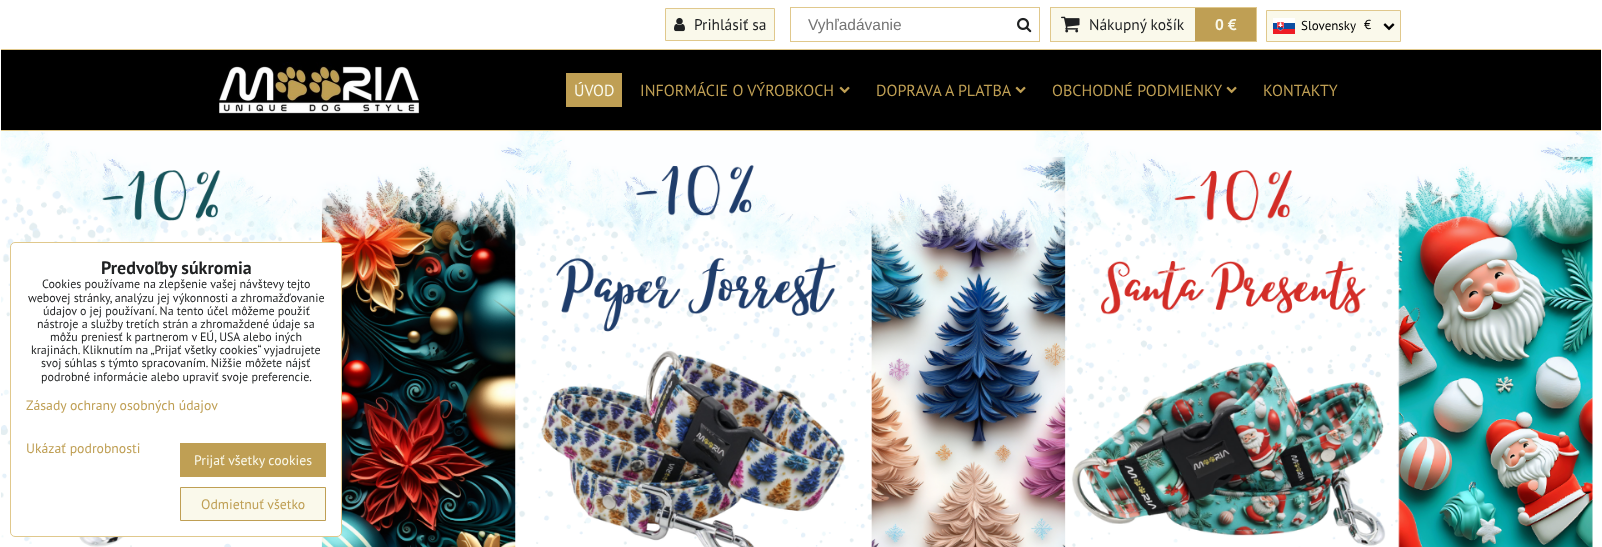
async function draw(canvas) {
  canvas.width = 1602
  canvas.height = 547
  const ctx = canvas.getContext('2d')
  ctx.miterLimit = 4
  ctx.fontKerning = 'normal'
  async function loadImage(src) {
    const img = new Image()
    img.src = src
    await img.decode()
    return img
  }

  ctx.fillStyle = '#fff'
  ctx.fillRect(0, 0, 1602, 547)
  ctx.fillStyle = '#e0c88c'
  ctx.fillRect(1, 49, 1600, 1)
  ctx.fillStyle = '#faf9eb'
  ctx.beginPath()
  ctx.rect(665.5, 8.5, 109, 32)
  ctx.fill()
  ctx.strokeStyle = '#e0c88c'
  ctx.stroke()
  ctx.drawImage(await loadImage('image0.png'), 674, 17, 11, 15)
  ctx.font = '15.5px PT Sans'
  ctx.fillStyle = '#1f2122'
  ctx.fillText('Prihlásiť sa', 694, 30)
  ctx.strokeRect(790.5, 7.5, 249, 34)
  ctx.font = '15.5px Liberation Sans'
  ctx.fillStyle = '#757575'
  ctx.fillText('Vyhľadávanie', 808, 30)
  ctx.drawImage(await loadImage('image1.png'), 1017, 17, 15, 16)
  ctx.fillStyle = '#faf9eb'
  ctx.fillRect(1051, 8, 143, 33)
  ctx.strokeRect(1050.5, 7.5, 206, 34)
  ctx.drawImage(await loadImage('image2.png'), 1061, 16, 19, 17)
  ctx.font = '15.5px PT Sans'
  ctx.fillStyle = '#1f2122'
  ctx.fillText('Nákupný košík', 1089, 30)
  ctx.fillStyle = '#bf9f54'
  ctx.fillRect(1195, 8, 61, 33)
  ctx.fillStyle = '#faf9eb'
  ctx.fillRect(1194, 8, 1, 33)
  ctx.font = 'bold 15.5px PT Sans'
  ctx.fillText('0 €', 1215, 30)
  ctx.beginPath()
  ctx.rect(1266.5, 10.5, 134, 31)
  ctx.fill()
  ctx.stroke()
  ctx.drawImage(await loadImage('image3.png'), 1273, 18, 22, 16)
  ctx.font = '13px PT Sans'
  ctx.fillStyle = '#000'
  ctx.fillText('Slovensky', 1301, 30)
  ctx.fillText('€', 1364, 29)
  ctx.drawImage(await loadImage('image4.png'), 1383, 23, 12, 8)
  ctx.fillRect(1, 50, 1600, 80)
  ctx.drawImage(await loadImage('image5.png'), 219, 62, 201, 52)
  ctx.fillStyle = '#bf9f54'
  ctx.fillRect(566, 73, 56, 34)
  ctx.font = '16px PT Sans'
  ctx.fillStyle = '#faf9eb'
  ctx.fillText('ÚVOD', 574, 96)
  ctx.fillStyle = '#bf9f54'
  ctx.fillText('INFORMÁCIE O VÝROBKOCH', 640, 96)
  ctx.drawImage(await loadImage('image6.png'), 839, 86, 11, 8)
  ctx.fillText('DOPRAVA A PLATBA', 876, 96)
  ctx.drawImage(await loadImage('image6.png'), 1015, 86, 11, 8)
  ctx.fillText('OBCHODNÉ PODMIENKY', 1052, 96)
  ctx.drawImage(await loadImage('image6.png'), 1226, 86, 11, 8)
  ctx.fillText('KONTAKTY', 1263, 96)
  ctx.fillStyle = '#e0c88c'
  ctx.fillRect(1, 130, 1600, 1)
  ctx.drawImage(await loadImage('image7.png'), 1, 131, 1600, 416)
  ctx.fillStyle = '#fff'
  ctx.beginPath()
  ctx.roundRect(10.5, 242.5, 331, 294, 4.5)
  ctx.fill()
  ctx.stroke()
  ctx.font = 'bold 18px PT Sans'
  ctx.fillStyle = '#1f2122'
  ctx.fillText('Predvoľby súkromia', 101, 274)
  ctx.font = '12px PT Sans'
  ctx.fillText('Cookies používame na zlepšenie vašej návštevy tejto', 42, 288)
  ctx.fillText('webovej stránky, analýzu jej výkonnosti a zhromažďovanie', 28, 302)
  ctx.fillText('údajov o jej používaní. Na tento účel môžeme použiť', 43, 315)
  ctx.fillText('nástroje a služby tretích strán a zhromaždené údaje sa', 37, 328)
  ctx.fillText('môžu preniesť k partnerom v EÚ, USA alebo iných', 50, 341)
  ctx.fillText('krajinách. Kliknutím na „Prijať všetky cookies“ vyjadrujete', 31, 354)
  ctx.fillText('svoj súhlas s týmto spracovaním. Nižšie môžete nájsť', 41, 367)
  ctx.fillText('podrobné informácie alebo upraviť svoje preferencie.', 41, 381)
  ctx.font = '13.75px PT Sans'
  ctx.fillStyle = '#bf9f54'
  ctx.fillText('Zásady ochrany osobných údajov', 26, 410)
  ctx.fillText('Ukázať podrobnosti', 26, 453)
  ctx.fillRect(180, 443, 146, 34)
  ctx.fillStyle = '#faf9eb'
  ctx.fillText('Prijať všetky cookies', 194, 465)
  ctx.beginPath()
  ctx.rect(180.5, 487.5, 145, 33)
  ctx.fill()
  ctx.strokeStyle = '#bf9f54'
  ctx.stroke()
  ctx.fillStyle = '#bf9f54'
  ctx.fillText('Odmietnuť všetko', 201, 509)
}

draw(document.querySelector('canvas'))
